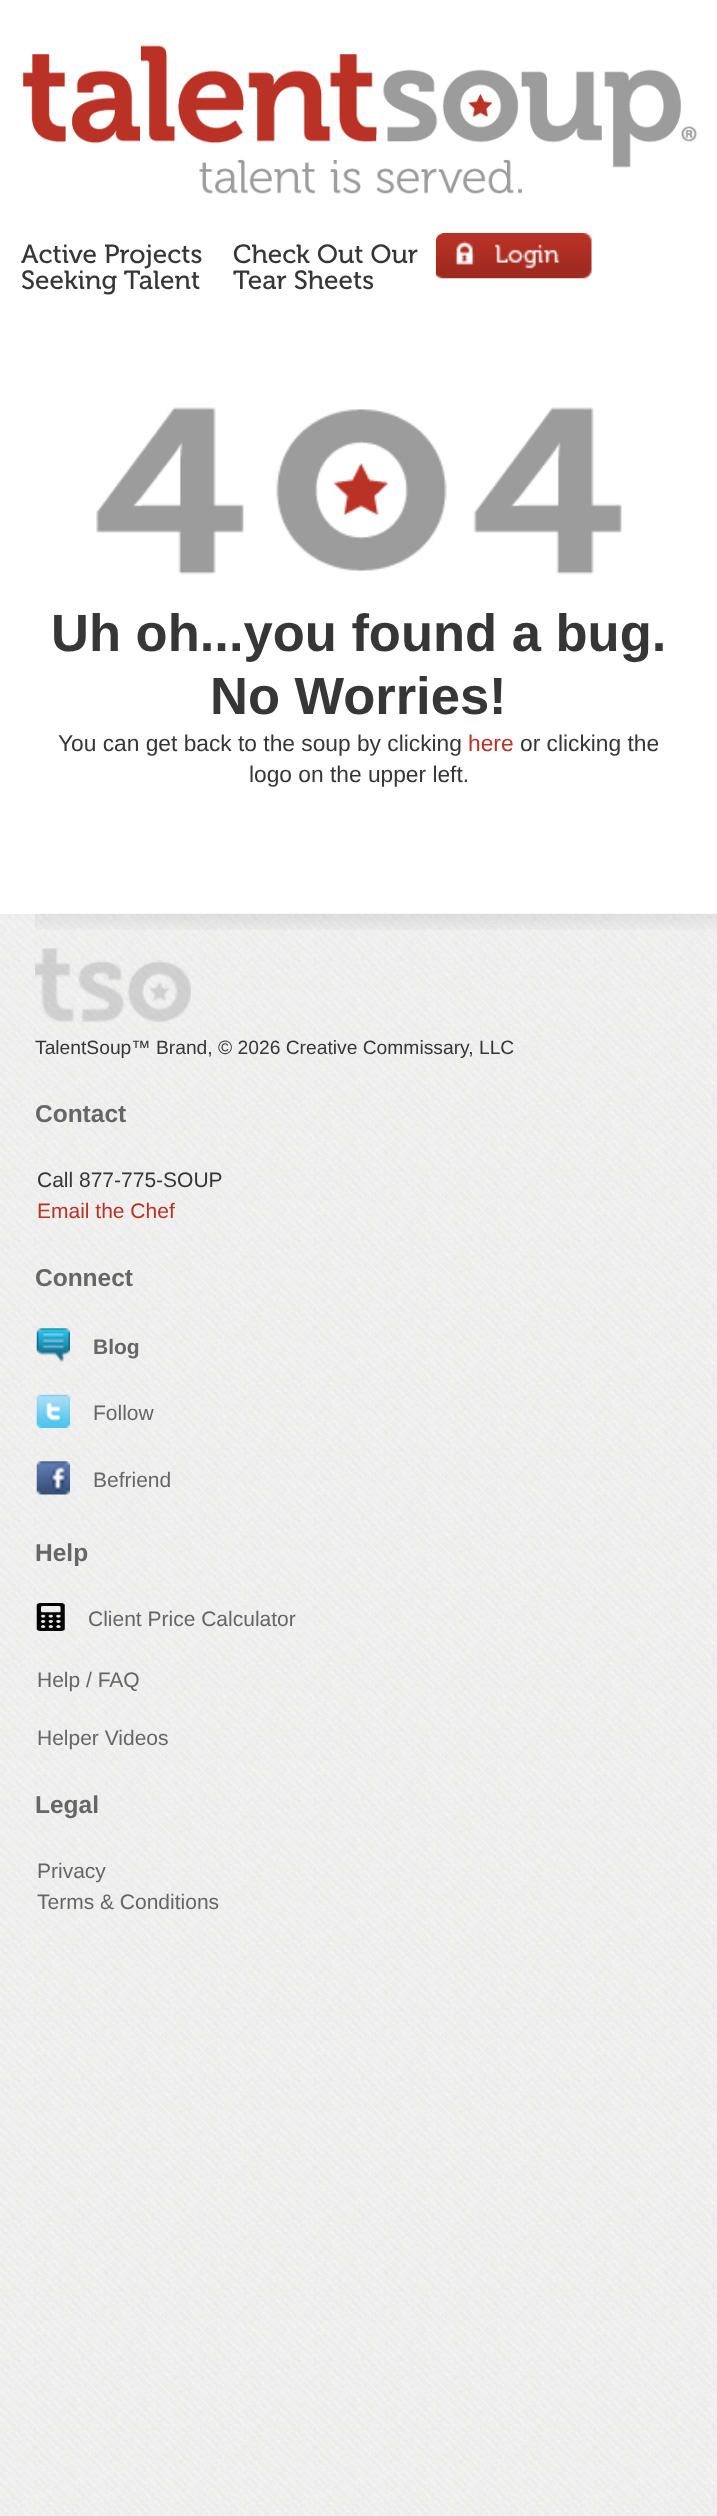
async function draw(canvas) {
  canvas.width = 717
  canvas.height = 2516
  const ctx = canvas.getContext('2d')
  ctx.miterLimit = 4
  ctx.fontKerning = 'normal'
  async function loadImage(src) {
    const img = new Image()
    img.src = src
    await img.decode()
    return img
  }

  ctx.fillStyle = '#fff'
  ctx.fillRect(0, 0, 717, 2516)
  ctx.drawImage(await loadImage('image0.png'), 0, 914, 717, 1602)
  ctx.drawImage(await loadImage('image1.png'), 22, 45, 675, 149)
  ctx.font = '26.25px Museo'
  ctx.fillStyle = '#363636'
  ctx.fillText('Active Projects', 21, 263)
  ctx.fillText('Seeking Talent', 21, 289)
  ctx.fillText('Check Out Our', 233, 263)
  ctx.fillText('Tear Sheets', 233, 289)
  ctx.drawImage(await loadImage('image2.png'), 435, 232, 157, 47)
  ctx.drawImage(await loadImage('image3.png'), 96, 407, 526, 168)
  ctx.font = 'bold 52.5px Liberation Sans'
  ctx.fillText('Uh oh...you found a bug.', 51, 651)
  ctx.fillText('No Worries!', 210, 714)
  ctx.font = '22.75px Liberation Sans'
  ctx.fillText('You can get back to the soup by clicking', 58, 751)
  ctx.fillStyle = '#ba3226'
  ctx.fillText('here', 468, 751)
  ctx.fillStyle = '#363636'
  ctx.fillText('or clicking the', 520, 751)
  ctx.fillText('logo on the upper left.', 249, 782)
  ctx.drawImage(await loadImage('image4.png'), 35, 913, 682, 17)
  ctx.drawImage(await loadImage('image5.png'), 35, 948, 156, 74)
  ctx.font = '19.25px Liberation Sans'
  ctx.fillText('TalentSoup™ Brand, © 2026 Creative Commissary, LLC', 35, 1054)
  ctx.font = 'bold 24.5px Liberation Sans'
  ctx.fillStyle = '#666'
  ctx.fillText('Contact', 35, 1122)
  ctx.font = '21px Liberation Sans'
  ctx.fillStyle = '#363636'
  ctx.fillText('Call 877-775-SOUP', 37, 1187)
  ctx.fillStyle = '#ba3226'
  ctx.fillText('Email the Chef', 37, 1218)
  ctx.font = 'bold 24.5px Liberation Sans'
  ctx.fillStyle = '#666'
  ctx.fillText('Connect', 35, 1286)
  ctx.drawImage(await loadImage('image6.png'), 36, 1328, 34, 34)
  ctx.font = 'bold 21px Liberation Sans'
  ctx.fillText('Blog', 93, 1354)
  ctx.drawImage(await loadImage('image7.png'), 36, 1394, 34, 34)
  ctx.font = '21px Liberation Sans'
  ctx.fillText('Follow', 93, 1420)
  ctx.drawImage(await loadImage('image8.png'), 36, 1461, 34, 34)
  ctx.fillText('Befriend', 93, 1487)
  ctx.font = 'bold 24.5px Liberation Sans'
  ctx.fillText('Help', 35, 1561)
  ctx.drawImage(await loadImage('image9.png'), 36, 1603, 29, 28)
  ctx.font = '21px Liberation Sans'
  ctx.fillText('Client Price Calculator', 88, 1626)
  ctx.fillText('Help / FAQ', 37, 1687)
  ctx.fillText('Helper Videos', 37, 1745)
  ctx.font = 'bold 24.5px Liberation Sans'
  ctx.fillText('Legal', 35, 1813)
  ctx.font = '21px Liberation Sans'
  ctx.fillText('Privacy', 37, 1878)
  ctx.fillText('Terms & Conditions', 37, 1909)
}

draw(document.querySelector('canvas'))
